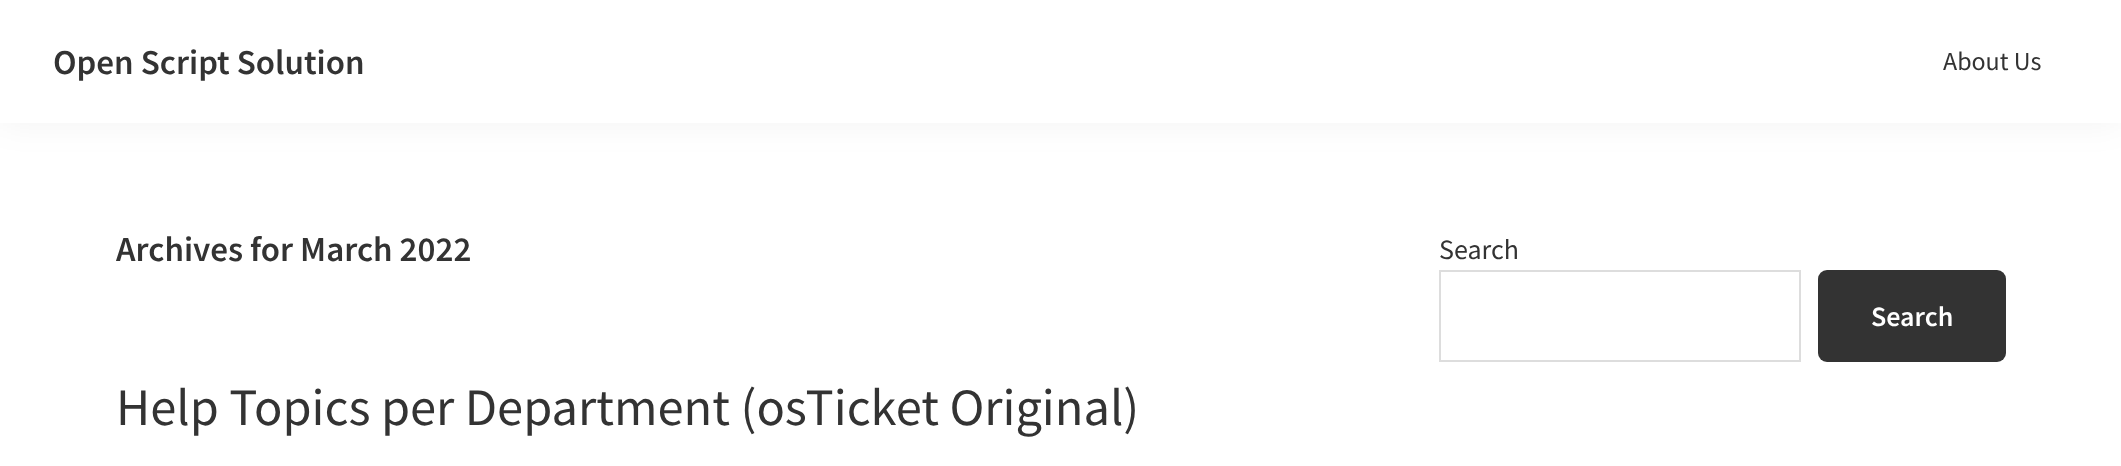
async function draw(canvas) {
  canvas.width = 2121
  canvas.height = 466
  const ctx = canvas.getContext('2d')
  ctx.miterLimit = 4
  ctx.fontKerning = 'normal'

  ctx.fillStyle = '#fff'
  ctx.fillRect(0, 0, 2121, 466)
  ctx.fillStyle = '#0000000d'
  ctx.filter = 'blur(17.5px)'
  ctx.beginPath()
  ctx.rect(0, 0, 2121, 123)
  ctx.fill()
  ctx.filter = 'none'
  ctx.fillStyle = '#fff'
  ctx.fillRect(0, 0, 2121, 123)
  ctx.font = '600 35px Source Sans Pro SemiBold'
  ctx.fillStyle = '#333'
  ctx.fillText('Open Script Solution', 53, 74)
  ctx.font = '26px Source Sans Pro'
  ctx.fillText('About Us', 1943, 70)
  ctx.font = '600 35px Source Sans Pro SemiBold'
  ctx.fillText('Archives for March 2022', 116, 261)
  ctx.font = '52.5px Source Sans Pro'
  ctx.fillText('Help Topics per Department (osTicket Original)', 116, 425)
  ctx.font = '28px Source Sans Pro'
  ctx.fillText('Search', 1439, 259)
  ctx.strokeStyle = '#ddd'
  ctx.lineWidth = 2
  ctx.strokeRect(1440, 271, 360, 90)
  ctx.beginPath()
  ctx.roundRect(1818, 270, 188, 92, 9)
  ctx.fill()
  ctx.font = '600 28px Source Sans Pro SemiBold'
  ctx.fillStyle = '#fff'
  ctx.fillText('Search', 1871, 326)
}

draw(document.querySelector('canvas'))
